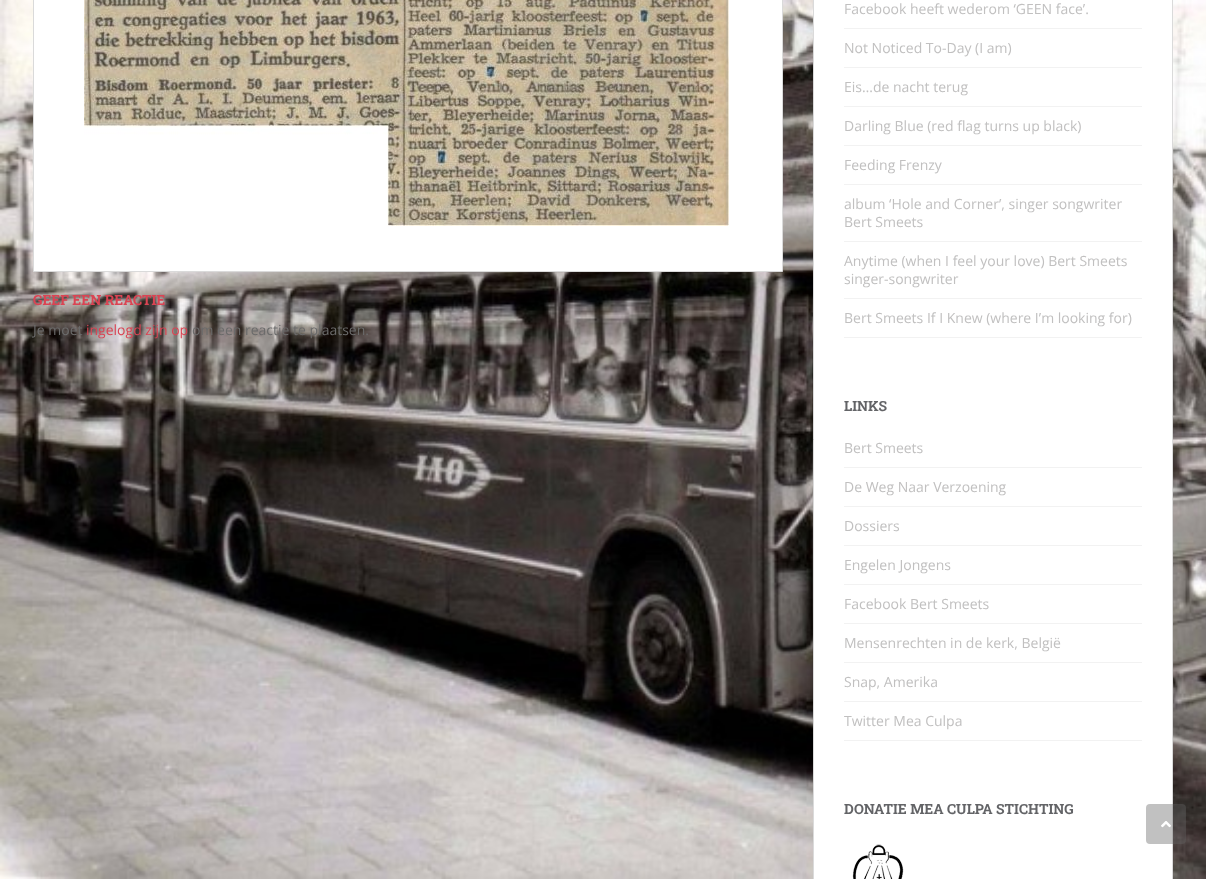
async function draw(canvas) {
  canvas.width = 1206
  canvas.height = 879
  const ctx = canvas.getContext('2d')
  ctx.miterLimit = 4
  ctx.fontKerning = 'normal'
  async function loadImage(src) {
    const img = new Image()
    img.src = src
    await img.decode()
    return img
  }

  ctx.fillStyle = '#fff'
  ctx.fillRect(0, 0, 1206, 879)
  ctx.drawImage(await loadImage('image0.png'), 0, 0, 1206, 879)
  ctx.beginPath()
  ctx.rect(33.5, -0.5, 749, 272)
  ctx.fill()
  ctx.strokeStyle = '#dadada'
  ctx.stroke()
  ctx.drawImage(await loadImage('image1.png'), 84, 0, 645, 226)
  ctx.font = 'bold 14px Roboto Slab'
  ctx.fillStyle = '#da4453'
  ctx.fillText('GEEF EEN REACTIE', 33, 305)
  ctx.font = '14px Open Sans'
  ctx.fillStyle = '#6b6b6b'
  ctx.fillText('Je moet', 33, 335)
  ctx.fillStyle = '#da4453'
  ctx.fillText('ingelogd zijn op', 86, 335)
  ctx.fillStyle = '#6b6b6b'
  ctx.fillText('om een reactie te plaatsen.', 192, 335)
  ctx.fillStyle = '#fff'
  ctx.beginPath()
  ctx.rect(813.5, -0.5, 359, 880)
  ctx.fill()
  ctx.stroke()
  ctx.fillStyle = '#f2f2f2'
  ctx.fillRect(844, 28, 298, 1)
  ctx.fillStyle = '#c1c0c0'
  ctx.fillText('Facebook heeft wederom ‘GEEN face’.', 844, 14)
  ctx.fillStyle = '#f2f2f2'
  ctx.fillRect(844, 67, 298, 1)
  ctx.fillStyle = '#c1c0c0'
  ctx.fillText('Not Noticed To-Day (I am)', 844, 53)
  ctx.fillStyle = '#f2f2f2'
  ctx.fillRect(844, 106, 298, 1)
  ctx.fillStyle = '#c1c0c0'
  ctx.fillText('Eis…de nacht terug', 844, 92)
  ctx.fillStyle = '#f2f2f2'
  ctx.fillRect(844, 145, 298, 1)
  ctx.fillStyle = '#c1c0c0'
  ctx.fillText('Darling Blue (red flag turns up black)', 844, 131)
  ctx.fillStyle = '#f2f2f2'
  ctx.fillRect(844, 184, 298, 1)
  ctx.fillStyle = '#c1c0c0'
  ctx.fillText('Feeding Frenzy', 844, 170)
  ctx.fillStyle = '#f2f2f2'
  ctx.fillRect(844, 241, 298, 1)
  ctx.fillStyle = '#c1c0c0'
  ctx.fillText('album ‘Hole and Corner’, singer songwriter', 844, 209)
  ctx.fillText('Bert Smeets', 844, 227)
  ctx.fillStyle = '#f2f2f2'
  ctx.fillRect(844, 298, 298, 1)
  ctx.fillStyle = '#c1c0c0'
  ctx.fillText('Anytime (when I feel your love) Bert Smeets', 844, 266)
  ctx.fillText('singer-songwriter', 844, 284)
  ctx.fillStyle = '#f2f2f2'
  ctx.fillRect(844, 337, 298, 1)
  ctx.fillStyle = '#c1c0c0'
  ctx.fillText('Bert Smeets If I Knew (where I’m looking for)', 844, 323)
  ctx.font = 'bold 14px Roboto Slab'
  ctx.fillStyle = '#636467'
  ctx.fillText('LINKS', 844, 411)
  ctx.fillStyle = '#f2f2f2'
  ctx.fillRect(844, 467, 298, 1)
  ctx.font = '14px Open Sans'
  ctx.fillStyle = '#c1c0c0'
  ctx.fillText('Bert Smeets', 844, 453)
  ctx.fillStyle = '#f2f2f2'
  ctx.fillRect(844, 506, 298, 1)
  ctx.fillStyle = '#c1c0c0'
  ctx.fillText('De Weg Naar Verzoening', 844, 492)
  ctx.fillStyle = '#f2f2f2'
  ctx.fillRect(844, 545, 298, 1)
  ctx.fillStyle = '#c1c0c0'
  ctx.fillText('Dossiers', 844, 531)
  ctx.fillStyle = '#f2f2f2'
  ctx.fillRect(844, 584, 298, 1)
  ctx.fillStyle = '#c1c0c0'
  ctx.fillText('Engelen Jongens', 844, 570)
  ctx.fillStyle = '#f2f2f2'
  ctx.fillRect(844, 623, 298, 1)
  ctx.fillStyle = '#c1c0c0'
  ctx.fillText('Facebook Bert Smeets', 844, 609)
  ctx.fillStyle = '#f2f2f2'
  ctx.fillRect(844, 662, 298, 1)
  ctx.fillStyle = '#c1c0c0'
  ctx.fillText('Mensenrechten in de kerk, België', 844, 648)
  ctx.fillStyle = '#f2f2f2'
  ctx.fillRect(844, 701, 298, 1)
  ctx.fillStyle = '#c1c0c0'
  ctx.fillText('Snap, Amerika', 844, 687)
  ctx.fillStyle = '#f2f2f2'
  ctx.fillRect(844, 740, 298, 1)
  ctx.fillStyle = '#c1c0c0'
  ctx.fillText('Twitter Mea Culpa', 844, 726)
  ctx.font = 'bold 14px Roboto Slab'
  ctx.fillStyle = '#636467'
  ctx.fillText('DONATIE MEA CULPA STICHTING', 844, 814)
  ctx.drawImage(await loadImage('image2.png'), 852, 844, 52, 35)
  ctx.fillStyle = '#64646466'
  ctx.beginPath()
  ctx.roundRect(1146, 804, 40, 40, 4)
  ctx.fill()
  ctx.drawImage(await loadImage('image3.png'), 1161, 821, 10, 7)
}

draw(document.querySelector('canvas'))
